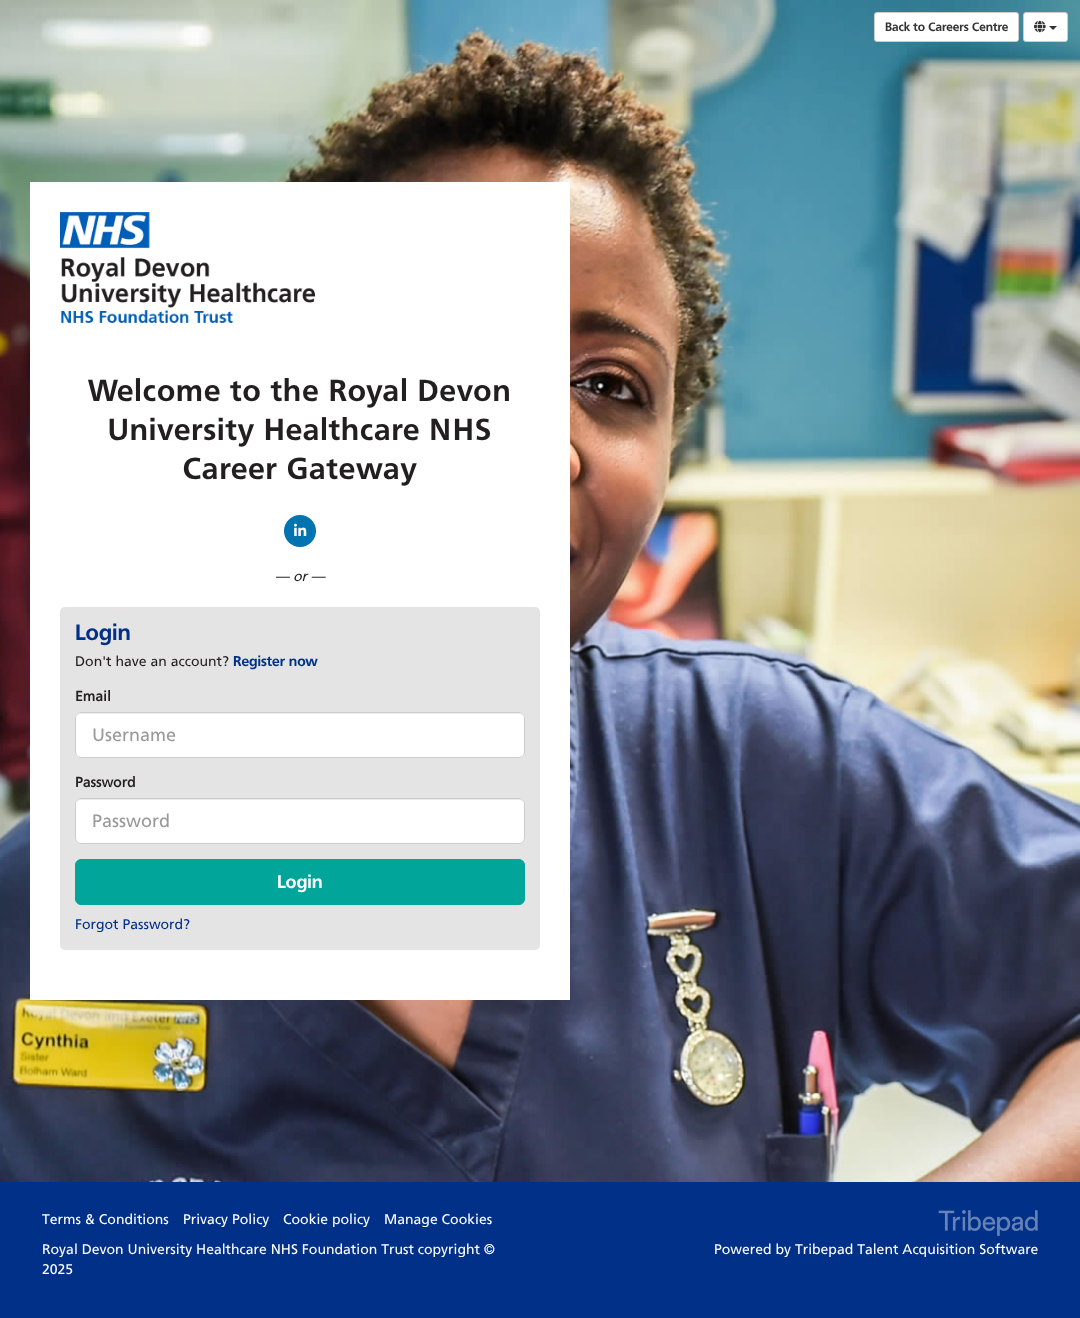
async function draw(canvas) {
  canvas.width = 1080
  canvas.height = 1318
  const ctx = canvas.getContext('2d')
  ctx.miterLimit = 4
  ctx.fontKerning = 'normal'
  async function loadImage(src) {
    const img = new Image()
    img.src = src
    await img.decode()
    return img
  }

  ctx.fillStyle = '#fff'
  ctx.fillRect(0, 0, 1080, 1318)
  ctx.drawImage(await loadImage('image0.png'), 0, 0, 1080, 1182)
  ctx.fillRect(30, 182, 540, 818)
  ctx.beginPath()
  ctx.roundRect(874.5, 12.5, 144, 29, 2.5)
  ctx.fill()
  ctx.strokeStyle = '#ccc'
  ctx.stroke()
  ctx.font = 'bold 12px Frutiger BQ'
  ctx.fillStyle = '#333'
  ctx.fillText('Back to Careers Centre', 885, 31)
  ctx.fillStyle = '#fff'
  ctx.beginPath()
  ctx.roundRect(1023.5, 12.5, 44, 29, 2.5)
  ctx.fill()
  ctx.stroke()
  ctx.drawImage(await loadImage('image1.png'), 1034, 20, 12, 13)
  ctx.fillStyle = '#333'
  ctx.beginPath()
  ctx.moveTo(1049, 26)
  ctx.lineTo(1057, 26)
  ctx.lineTo(1053, 30)
  ctx.closePath()
  ctx.fill()
  ctx.drawImage(await loadImage('image2.png'), 60, 212, 256, 111)
  ctx.letterSpacing = '1px'
  ctx.font = 'bold 30px Frutiger BQ'
  ctx.fillStyle = '#231f20'
  ctx.fillText('Welcome to the Royal Devon', 88, 401)
  ctx.fillText('University Healthcare NHS', 108, 440)
  ctx.fillText('Career Gateway', 183, 479)
  ctx.fillStyle = '#0073b1'
  ctx.beginPath()
  ctx.arc(300, 531, 16, 0, 2 * Math.PI)
  ctx.fill()
  ctx.drawImage(await loadImage('image3.png'), 294, 523, 13, 13)
  ctx.letterSpacing = '0px'
  ctx.font = 'italic 14px Frutiger'
  ctx.fillStyle = '#231f20'
  ctx.fillText('— or —', 275, 581)
  ctx.fillStyle = '#e4e4e4'
  ctx.beginPath()
  ctx.roundRect(60, 607, 480, 343, 5)
  ctx.fill()
  ctx.font = 'bold 22px Frutiger BQ'
  ctx.fillStyle = '#003087'
  ctx.fillText('Login', 75, 640)
  ctx.font = '14px Frutiger'
  ctx.fillStyle = '#231f20'
  ctx.fillText('Don\'t have an account?', 75, 666)
  ctx.font = 'bold 14px Frutiger BQ'
  ctx.fillStyle = '#003087'
  ctx.fillText('Register now', 233, 666)
  ctx.font = 'bold 14px Frutiger'
  ctx.fillStyle = '#231f20'
  ctx.fillText('Email', 75, 701)
  ctx.fillStyle = '#fff'
  ctx.beginPath()
  ctx.roundRect(75, 712, 450, 46, 6)
  ctx.fill()
  ctx.fillStyle = '#ececec'
  ctx.beginPath()
  ctx.moveTo(81, 714)
  ctx.lineTo(519, 714)
  ctx.bezierCurveTo(522, 714, 524, 716, 524, 719)
  ctx.bezierCurveTo(524, 716, 522, 713, 519, 713)
  ctx.lineTo(81, 713)
  ctx.bezierCurveTo(78, 713, 76, 716, 76, 719)
  ctx.bezierCurveTo(76, 716, 78, 714, 81, 714)
  ctx.closePath()
  ctx.fill()
  ctx.beginPath()
  ctx.roundRect(75.5, 712.5, 449, 45, 5.5)
  ctx.stroke()
  ctx.font = '18px Frutiger'
  ctx.fillStyle = '#999'
  ctx.fillText('Username', 92, 741)
  ctx.font = 'bold 14px Frutiger'
  ctx.fillStyle = '#231f20'
  ctx.fillText('Password', 75, 787)
  ctx.fillStyle = '#fff'
  ctx.beginPath()
  ctx.roundRect(75, 798, 450, 46, 6)
  ctx.fill()
  ctx.fillStyle = '#ececec'
  ctx.beginPath()
  ctx.moveTo(81, 800)
  ctx.lineTo(519, 800)
  ctx.bezierCurveTo(522, 800, 524, 802, 524, 805)
  ctx.bezierCurveTo(524, 802, 522, 799, 519, 799)
  ctx.lineTo(81, 799)
  ctx.bezierCurveTo(78, 799, 76, 802, 76, 805)
  ctx.bezierCurveTo(76, 802, 78, 800, 81, 800)
  ctx.closePath()
  ctx.fill()
  ctx.beginPath()
  ctx.roundRect(75.5, 798.5, 449, 45, 5.5)
  ctx.stroke()
  ctx.font = '18px Frutiger'
  ctx.fillStyle = '#999'
  ctx.fillText('Password', 92, 827)
  ctx.fillStyle = '#02a59a'
  ctx.beginPath()
  ctx.roundRect(75.5, 859.5, 449, 45, 5.5)
  ctx.fill()
  ctx.strokeStyle = '#02a59a'
  ctx.stroke()
  ctx.font = 'bold 18px Frutiger BQ'
  ctx.fillStyle = '#fff'
  ctx.fillText('Login', 277, 888)
  ctx.font = '14px Frutiger'
  ctx.fillStyle = '#003087'
  ctx.fillText('Forgot Password?', 75, 929)
  ctx.fillRect(0, 1182, 1080, 136)
  ctx.fillStyle = '#fff'
  ctx.fillText('Terms & Conditions', 42, 1224)
  ctx.fillText('Privacy Policy', 183, 1224)
  ctx.fillText('Cookie policy', 283, 1224)
  ctx.fillText('Manage Cookies', 384, 1224)
  ctx.fillText('Royal Devon University Healthcare NHS Foundation Trust copyright ©', 42, 1254)
  ctx.fillText('2025', 42, 1274)
  ctx.drawImage(await loadImage('image4.png'), 938, 1210, 100, 26)
  ctx.fillText('Powered by Tribepad Talent Acquisition Software', 714, 1254)
}

draw(document.querySelector('canvas'))
